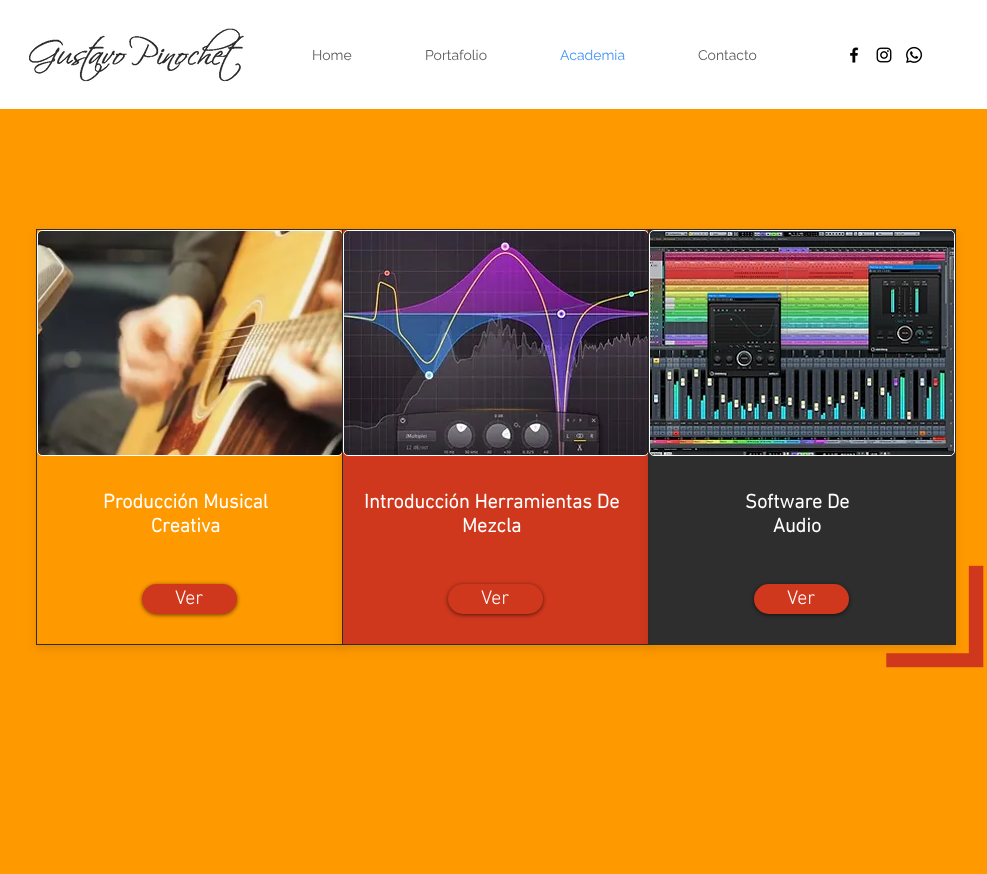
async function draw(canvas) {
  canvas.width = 987
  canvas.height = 874
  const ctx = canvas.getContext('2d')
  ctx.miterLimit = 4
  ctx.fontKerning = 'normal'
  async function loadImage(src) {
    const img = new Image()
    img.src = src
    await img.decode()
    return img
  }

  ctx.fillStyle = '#f90'
  ctx.fillRect(0, 0, 987, 874)
  ctx.fillStyle = '#fff'
  ctx.fillRect(0, 0, 987, 109)
  ctx.drawImage(await loadImage('image0.png'), 29, 28, 215, 54)
  ctx.font = '14px Raleway'
  ctx.fillStyle = '#5e5d5d'
  ctx.fillText('Home', 312, 60)
  ctx.fillText('Portafolio', 425, 60)
  ctx.fillStyle = '#4595f7'
  ctx.fillText('Academia', 560, 60)
  ctx.fillStyle = '#5e5d5d'
  ctx.fillText('Contacto', 698, 60)
  ctx.drawImage(await loadImage('image1.png'), 850, 47, 9, 16)
  ctx.drawImage(await loadImage('image2.png'), 876, 47, 16, 16)
  ctx.drawImage(await loadImage('image3.png'), 906, 46, 17, 17)
  ctx.save()
  ctx.beginPath()
  ctx.moveTo(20, 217)
  ctx.lineTo(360, 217)
  ctx.lineTo(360, 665)
  ctx.lineTo(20, 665)
  ctx.closePath()
  ctx.moveTo(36, 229)
  ctx.lineTo(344, 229)
  ctx.lineTo(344, 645)
  ctx.lineTo(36, 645)
  ctx.closePath()
  ctx.clip('evenodd')
  ctx.fillStyle = '#0000001a'
  ctx.filter = 'blur(5px)'
  ctx.beginPath()
  ctx.rect(36, 233, 308, 416)
  ctx.fill()
  ctx.filter = 'none'
  ctx.restore()
  ctx.strokeStyle = '#2c2c2b'
  ctx.strokeRect(36.5, 229.5, 307, 415)
  ctx.beginPath()
  ctx.roundRect(37.5, 230.5, 305, 225, 4.5)
  ctx.strokeStyle = '#fff'
  ctx.stroke()
  ctx.drawImage(await loadImage('image4.png'), 38, 231, 304, 224)
  ctx.font = 'bold 20px "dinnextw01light"'
  ctx.fillStyle = '#fff'
  ctx.fillText('Producción Musical', 103, 508)
  ctx.fillText('Creativa', 151, 532)
  ctx.fillStyle = '#00000099'
  ctx.filter = 'blur(2px)'
  ctx.beginPath()
  ctx.roundRect(142, 585, 95, 30, 15)
  ctx.fill()
  ctx.filter = 'none'
  ctx.fillStyle = '#cf381d'
  ctx.beginPath()
  ctx.roundRect(142, 584, 95, 30, 15)
  ctx.fill()
  ctx.font = '300 20px "dinnextw01light"'
  ctx.fillStyle = '#fff'
  ctx.fillText('Ver', 175, 604)
  ctx.fillStyle = '#0000001a'
  ctx.filter = 'blur(5px)'
  ctx.beginPath()
  ctx.rect(342, 233, 308, 416)
  ctx.fill()
  ctx.filter = 'none'
  ctx.strokeStyle = '#2c2c2b'
  ctx.strokeRect(342.5, 229.5, 307, 415)
  ctx.fillStyle = '#cf381d'
  ctx.fillRect(343, 230, 305, 414)
  ctx.beginPath()
  ctx.roundRect(343.5, 230.5, 305, 225, 4.5)
  ctx.strokeStyle = '#fff'
  ctx.stroke()
  ctx.drawImage(await loadImage('image5.png'), 344, 231, 304, 224)
  ctx.font = 'bold 20px "dinnextw01light"'
  ctx.fillStyle = '#fff'
  ctx.fillText('Introducción Herramientas De', 364, 508)
  ctx.fillText('Mezcla', 462, 532)
  ctx.fillStyle = '#00000099'
  ctx.filter = 'blur(2px)'
  ctx.beginPath()
  ctx.roundRect(448, 585, 95, 30, 15)
  ctx.fill()
  ctx.filter = 'none'
  ctx.fillStyle = '#cf381d'
  ctx.beginPath()
  ctx.roundRect(448, 584, 95, 30, 15)
  ctx.fill()
  ctx.font = '300 20px "dinnextw01light"'
  ctx.fillStyle = '#fff'
  ctx.fillText('Ver', 481, 604)
  ctx.fillStyle = '#0000001a'
  ctx.filter = 'blur(5px)'
  ctx.beginPath()
  ctx.rect(648, 233, 308, 416)
  ctx.fill()
  ctx.filter = 'none'
  ctx.strokeStyle = '#2c2c2b'
  ctx.strokeRect(648.5, 229.5, 307, 415)
  ctx.fillStyle = '#2e2e2e'
  ctx.fillRect(649, 230, 306, 414)
  ctx.beginPath()
  ctx.roundRect(649.5, 230.5, 305, 225, 4.5)
  ctx.strokeStyle = '#fff'
  ctx.stroke()
  ctx.drawImage(await loadImage('image6.png'), 650, 231, 304, 224)
  ctx.font = 'bold 20px "dinnextw01light"'
  ctx.fillStyle = '#fff'
  ctx.fillText('Software De', 745, 508)
  ctx.fillText('Audio', 773, 532)
  ctx.fillStyle = '#00000099'
  ctx.filter = 'blur(2px)'
  ctx.beginPath()
  ctx.roundRect(754, 585, 95, 30, 15)
  ctx.fill()
  ctx.filter = 'none'
  ctx.fillStyle = '#cf381d'
  ctx.beginPath()
  ctx.roundRect(754, 584, 95, 30, 15)
  ctx.fill()
  ctx.font = '300 20px "dinnextw01light"'
  ctx.fillStyle = '#fff'
  ctx.fillText('Ver', 787, 604)
  ctx.drawImage(await loadImage('image7.png'), 886, 565, 98, 103)
}

draw(document.querySelector('canvas'))
